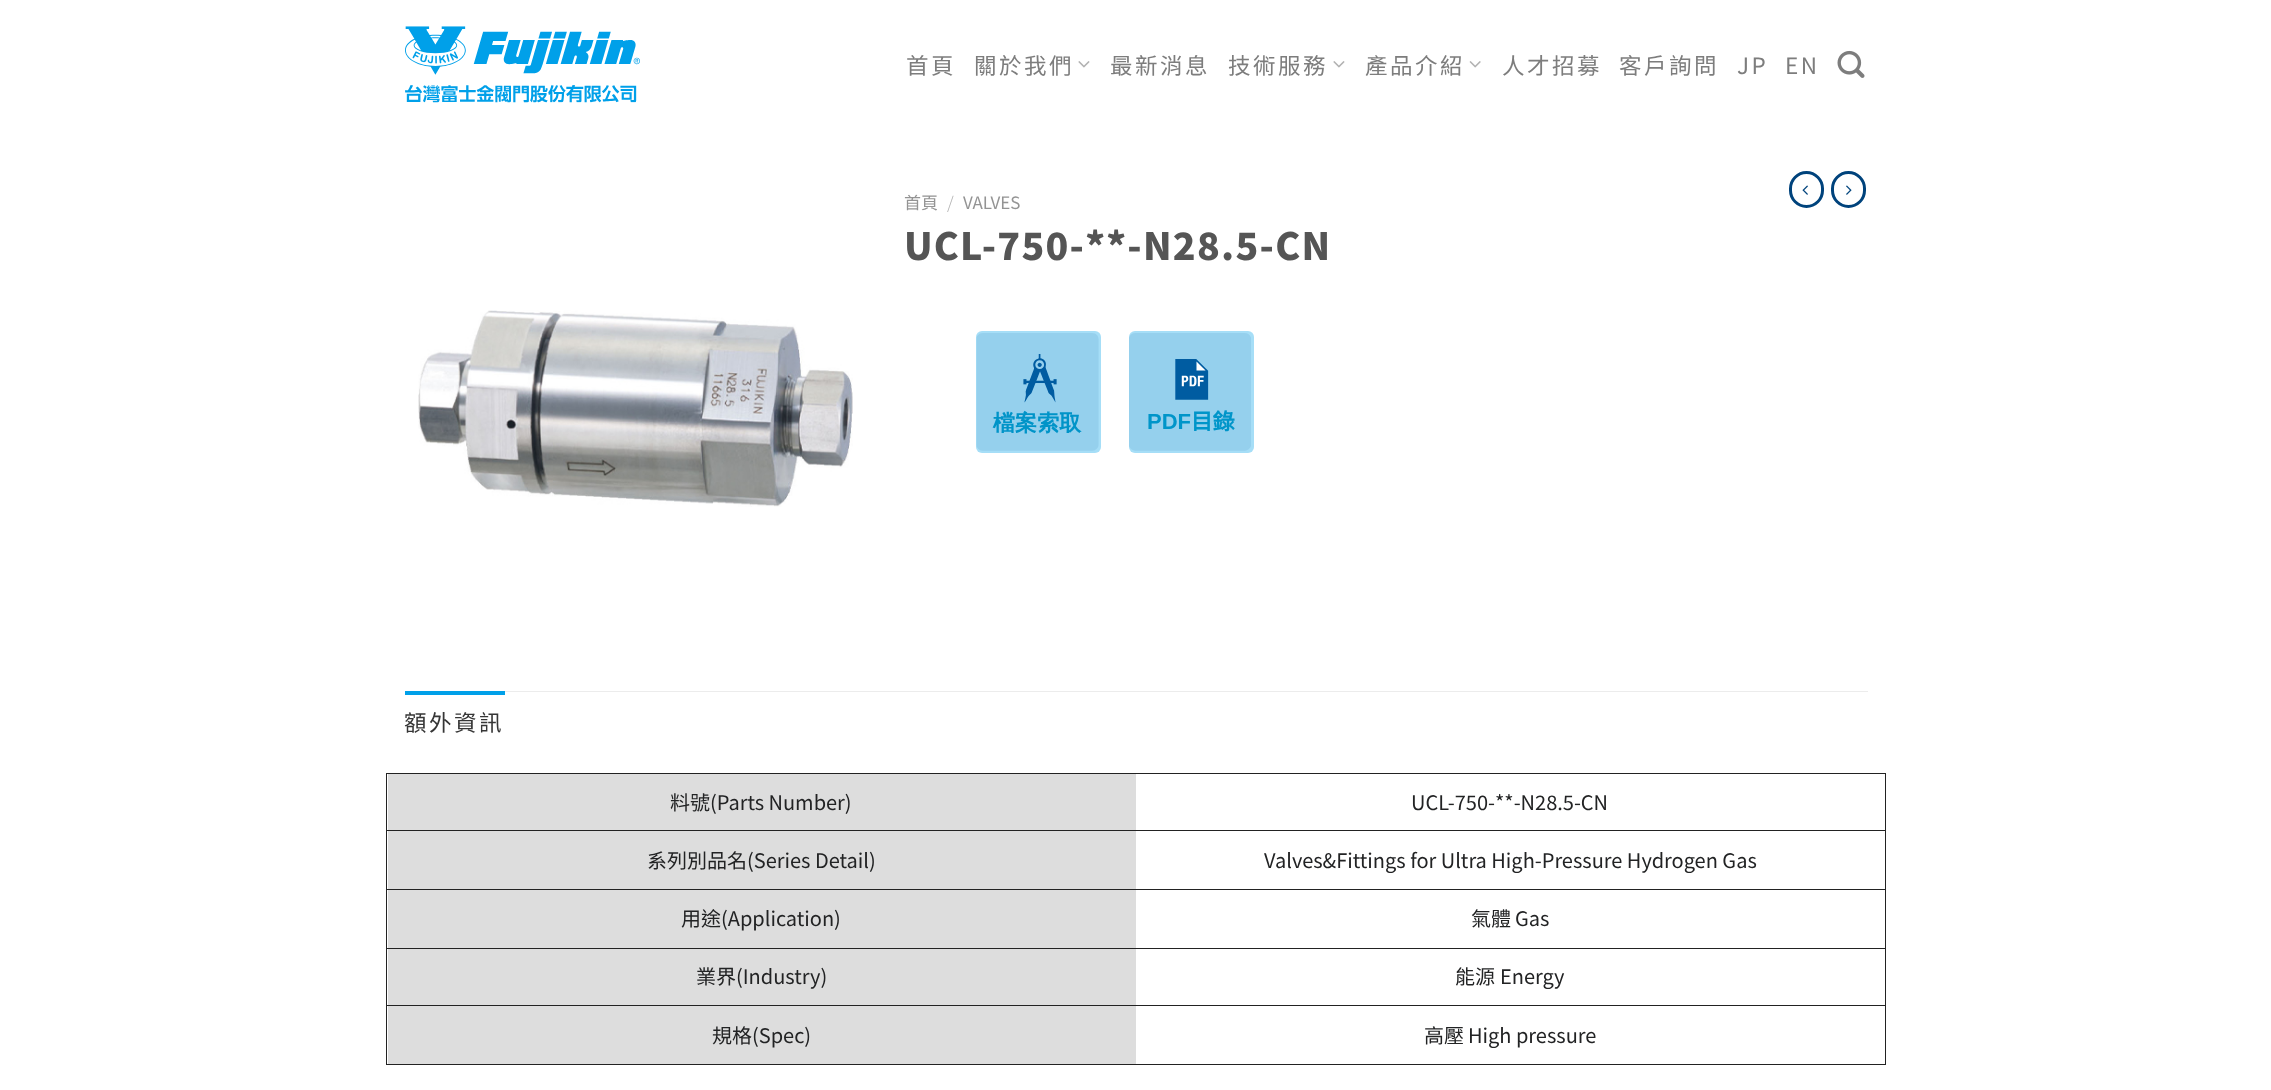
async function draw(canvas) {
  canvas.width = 2271
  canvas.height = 1090
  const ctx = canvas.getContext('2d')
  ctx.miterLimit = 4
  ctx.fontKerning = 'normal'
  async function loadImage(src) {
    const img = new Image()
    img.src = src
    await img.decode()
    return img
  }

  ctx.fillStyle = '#fff'
  ctx.fillRect(0, 0, 2271, 1090)
  ctx.drawImage(await loadImage('image0.png'), 405, 26, 235, 77)
  ctx.letterSpacing = '2.5px'
  ctx.font = '22.5px Noto Sans TC'
  ctx.fillStyle = '#7d7d7d'
  ctx.fillText('首頁', 906, 74)
  ctx.fillText('關於我們', 974, 74)
  ctx.drawImage(await loadImage('image1.png'), 1078, 61, 12, 7)
  ctx.fillText('最新消息', 1110, 74)
  ctx.fillText('技術服務', 1228, 74)
  ctx.drawImage(await loadImage('image1.png'), 1333, 61, 12, 7)
  ctx.fillText('產品介紹', 1365, 74)
  ctx.drawImage(await loadImage('image2.png'), 1469, 61, 12, 7)
  ctx.fillText('人才招募', 1502, 74)
  ctx.fillText('客戶詢問', 1619, 74)
  ctx.font = '22.5px "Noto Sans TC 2"'
  ctx.fillText('JP', 1737, 74)
  ctx.fillText('EN', 1785, 74)
  ctx.drawImage(await loadImage('image3.png'), 1837, 50, 28, 28)
  ctx.beginPath()
  ctx.roundRect(1790.5, 172.5, 32, 34, 16)
  ctx.strokeStyle = '#00437c'
  ctx.lineWidth = 3
  ctx.stroke()
  ctx.drawImage(await loadImage('image4.png'), 1802, 185, 6, 10)
  ctx.beginPath()
  ctx.roundRect(1832.5, 172.5, 32, 34, 16)
  ctx.stroke()
  ctx.drawImage(await loadImage('image5.png'), 1846, 185, 6, 10)
  ctx.letterSpacing = '0px'
  ctx.font = '17px Noto Sans TC'
  ctx.fillStyle = '#949494'
  ctx.fillText('首頁', 904, 209)
  ctx.font = '300 17px Noto Sans TC'
  ctx.fillStyle = '#b2b2b2'
  ctx.fillText('/', 947, 209)
  ctx.font = '17px "Noto Sans TC 2"'
  ctx.fillStyle = '#949494'
  ctx.fillText('VALVES', 963, 209)
  ctx.letterSpacing = '1.25px'
  ctx.font = '900 37.5px Noto Sans TC'
  ctx.fillStyle = '#555'
  ctx.fillText('UCL-750-**-N28.5-CN', 904, 260)
  ctx.fillStyle = '#a6def7'
  ctx.beginPath()
  ctx.roundRect(976, 331, 125, 122, 6)
  ctx.fill()
  ctx.drawImage(await loadImage('image6.png'), 976, 333, 123, 118)
  ctx.beginPath()
  ctx.roundRect(1129, 331, 125, 122, 6)
  ctx.fill()
  ctx.drawImage(await loadImage('image7.png'), 1129, 333, 122, 118)
  ctx.drawImage(await loadImage('image8.png'), 418, 310, 435, 197)
  ctx.fillStyle = '#ececec'
  ctx.fillRect(505, 691, 1363, 1)
  ctx.fillStyle = '#00a0e9'
  ctx.fillRect(405, 691, 100, 4)
  ctx.letterSpacing = '2.5px'
  ctx.font = '22.5px Noto Sans TC'
  ctx.fillStyle = '#363636'
  ctx.fillText('額外資訊', 404, 731)
  ctx.fillStyle = '#222'
  ctx.fillRect(386, 773, 1500, 1)
  ctx.fillRect(1885, 773, 1, 57)
  ctx.fillRect(386, 773, 1, 57)
  ctx.fillStyle = '#ddd'
  ctx.fillRect(388, 774, 748, 56)
  ctx.letterSpacing = '0px'
  ctx.font = '20px Noto Sans TC'
  ctx.fillStyle = '#222324'
  ctx.fillText('料號', 670, 810)
  ctx.font = '20px "Noto Sans TC 2"'
  ctx.fillText('(Parts Number)', 710, 810)
  ctx.fillText('UCL-750-**-N28.5-CN', 1411, 810)
  ctx.fillStyle = '#222'
  ctx.fillRect(386, 830, 1500, 1)
  ctx.fillRect(1885, 830, 1, 59)
  ctx.fillRect(386, 830, 1, 59)
  ctx.fillStyle = '#ddd'
  ctx.fillRect(388, 831, 748, 58)
  ctx.font = '20px Noto Sans TC'
  ctx.fillStyle = '#222324'
  ctx.fillText('系列別品名', 647, 868)
  ctx.font = '20px "Noto Sans TC 2"'
  ctx.fillText('(Series Detail)', 747, 868)
  ctx.fillText('Valves&Fittings for Ultra High-Pressure Hydrogen Gas', 1264, 868)
  ctx.fillStyle = '#222'
  ctx.fillRect(386, 889, 1500, 1)
  ctx.fillRect(1885, 889, 1, 59)
  ctx.fillRect(386, 889, 1, 59)
  ctx.fillStyle = '#ddd'
  ctx.fillRect(388, 890, 748, 58)
  ctx.font = '20px Noto Sans TC'
  ctx.fillStyle = '#222324'
  ctx.fillText('用途', 681, 926)
  ctx.font = '20px "Noto Sans TC 2"'
  ctx.fillText('(Application)', 721, 926)
  ctx.font = '20px Noto Sans TC'
  ctx.fillText('氣體', 1471, 926)
  ctx.font = '20px "Noto Sans TC 2"'
  ctx.fillText('Gas', 1515, 926)
  ctx.fillStyle = '#222'
  ctx.fillRect(386, 948, 1500, 1)
  ctx.fillRect(1885, 948, 1, 57)
  ctx.fillRect(386, 948, 1, 57)
  ctx.fillStyle = '#ddd'
  ctx.fillRect(388, 949, 748, 56)
  ctx.font = '20px Noto Sans TC'
  ctx.fillStyle = '#222324'
  ctx.fillText('業界', 696, 984)
  ctx.font = '20px "Noto Sans TC 2"'
  ctx.fillText('(Industry)', 736, 984)
  ctx.font = '20px Noto Sans TC'
  ctx.fillText('能源', 1455, 984)
  ctx.font = '20px "Noto Sans TC 2"'
  ctx.fillText('Energy', 1500, 984)
  ctx.strokeStyle = '#222'
  ctx.lineWidth = 1
  ctx.strokeRect(386.5, 1005.5, 1499, 59)
  ctx.fillStyle = '#ddd'
  ctx.fillRect(388, 1006, 748, 58)
  ctx.font = '20px Noto Sans TC'
  ctx.fillStyle = '#222324'
  ctx.fillText('規格', 712, 1043)
  ctx.font = '20px "Noto Sans TC 2"'
  ctx.fillText('(Spec)', 752, 1043)
  ctx.font = '20px Noto Sans TC'
  ctx.fillText('高壓', 1424, 1043)
  ctx.font = '20px "Noto Sans TC 2"'
  ctx.fillText('High pressure', 1468, 1043)
}

draw(document.querySelector('canvas'))
